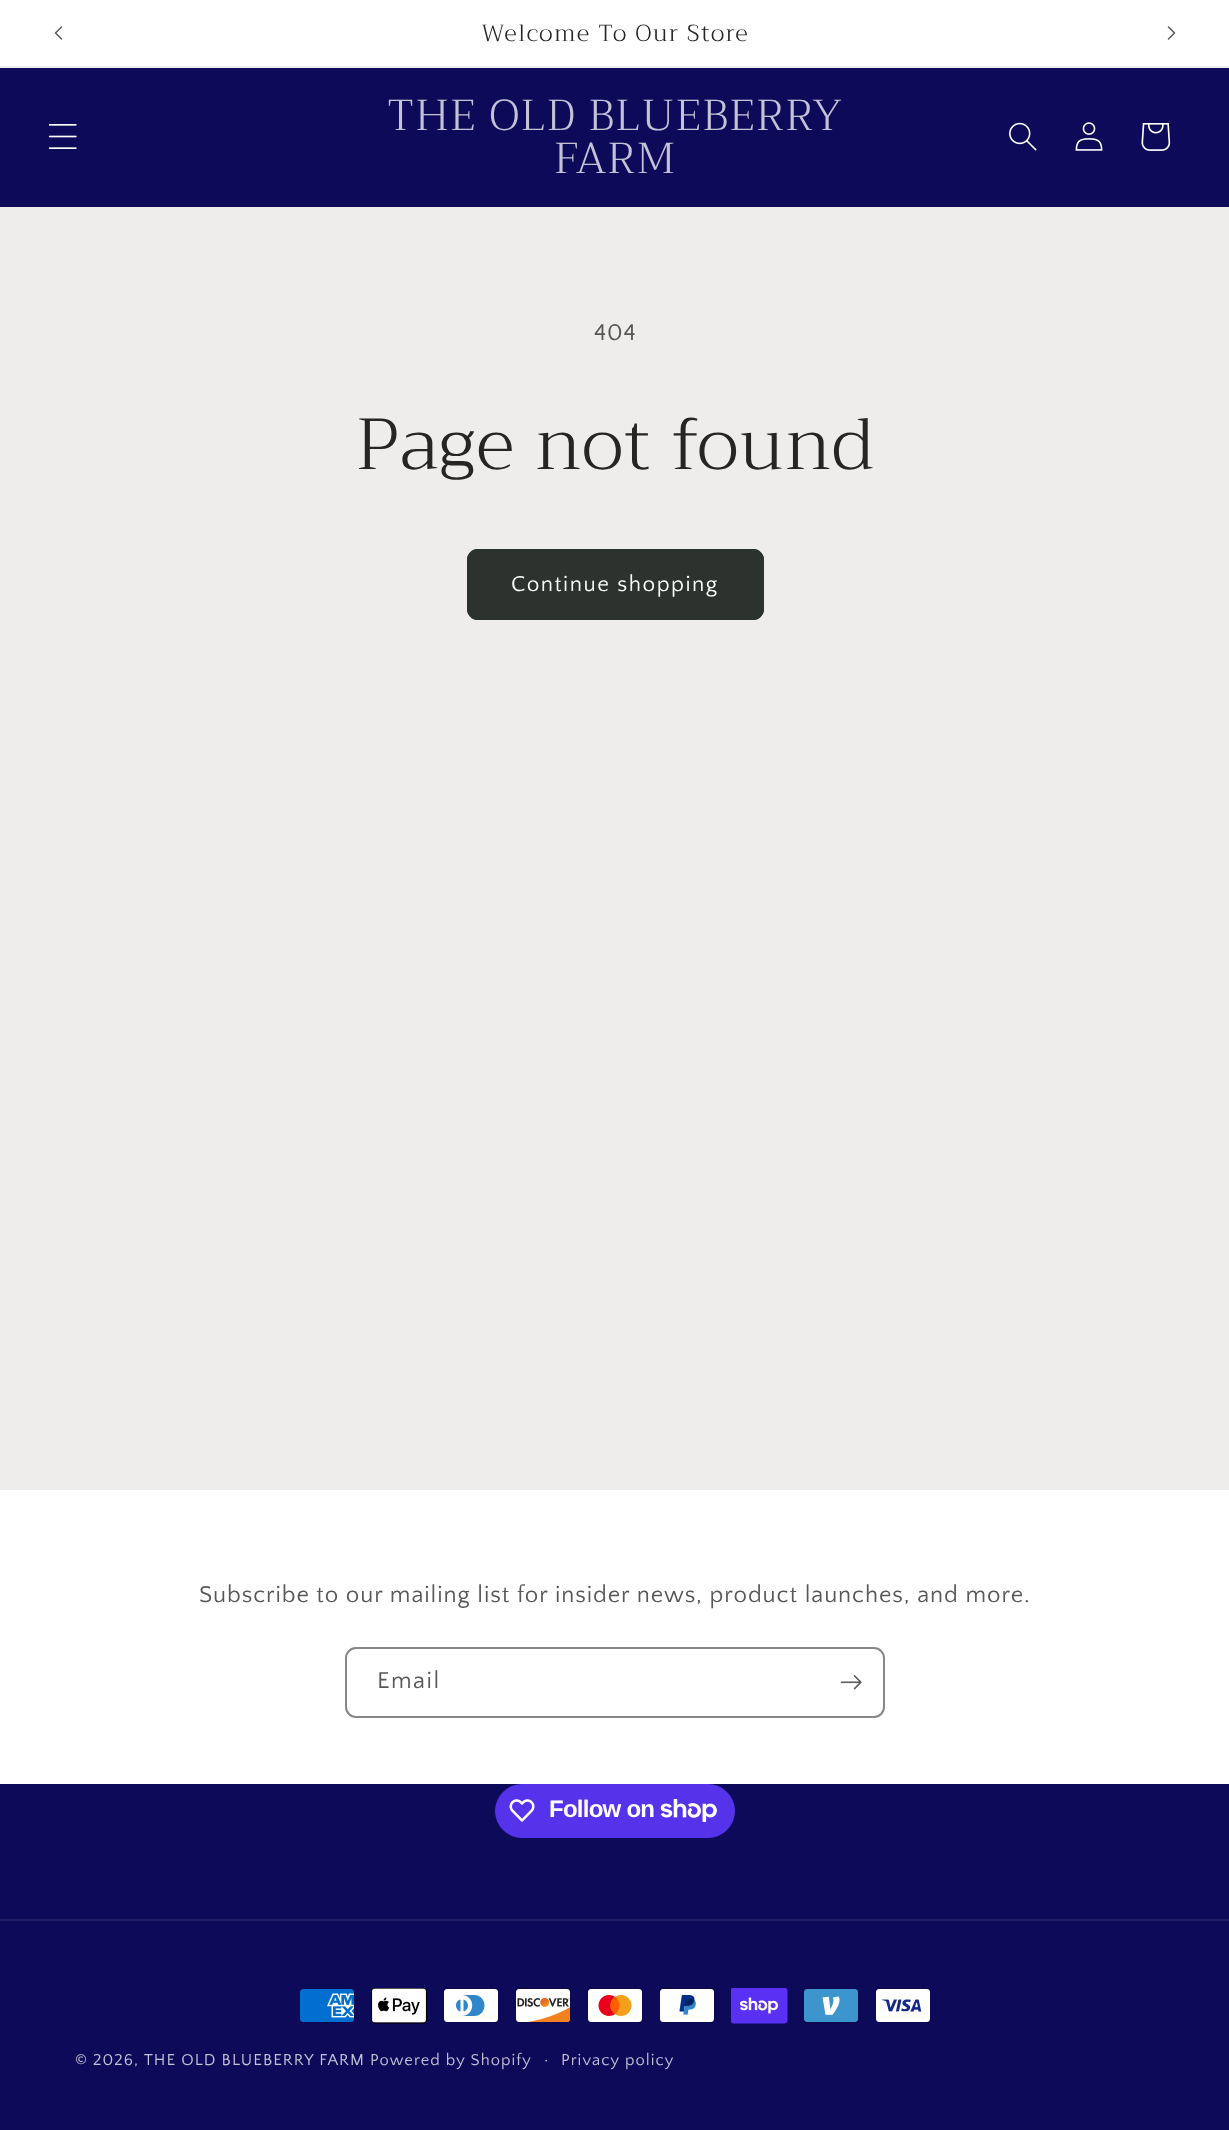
async function draw(canvas) {
  canvas.width = 1229
  canvas.height = 2130
  const ctx = canvas.getContext('2d')
  ctx.miterLimit = 4
  ctx.fontKerning = 'normal'
  async function loadImage(src) {
    const img = new Image()
    img.src = src
    await img.decode()
    return img
  }

  ctx.fillStyle = '#efecec'
  ctx.fillRect(0, 0, 1229, 2130)
  ctx.fillStyle = '#fff'
  ctx.fillRect(0, 0, 1229, 66)
  ctx.drawImage(await loadImage('image0.png'), 54, 26, 9, 14)
  ctx.letterSpacing = '1.5px'
  ctx.font = '300 23.4px Trirong'
  ctx.fillStyle = '#252525'
  ctx.fillText('Welcome To Our Store', 481, 41)
  ctx.drawImage(await loadImage('image1.png'), 1167, 26, 9, 14)
  ctx.fillStyle = '#0d0a59'
  ctx.fillRect(0, 68, 1229, 139)
  ctx.drawImage(await loadImage('image2.png'), 48, 124, 29, 25)
  ctx.letterSpacing = '1.1px'
  ctx.font = '300 43.25px Trirong'
  ctx.fillStyle = '#c3c2d6'
  ctx.fillText('THE OLD BLUEBERRY', 387, 130)
  ctx.fillText('FARM', 554, 173)
  ctx.drawImage(await loadImage('image3.png'), 1009, 122, 28, 29)
  ctx.drawImage(await loadImage('image4.png'), 1075, 122, 28, 29)
  ctx.drawImage(await loadImage('image5.png'), 1141, 123, 30, 28)
  ctx.letterSpacing = '0.9px'
  ctx.font = '24px Quattrocento Sans'
  ctx.fillStyle = '#585757'
  ctx.fillText('404', 594, 340)
  ctx.letterSpacing = '1.1px'
  ctx.font = '300 72px Trirong'
  ctx.fillStyle = '#252525'
  ctx.fillText('Page not found', 356, 469)
  ctx.fillStyle = '#2c332f'
  ctx.beginPath()
  ctx.roundRect(467, 549, 297, 71, 11)
  ctx.fill()
  ctx.beginPath()
  ctx.roundRect(468, 550, 295, 69, 10)
  ctx.strokeStyle = '#2c332f'
  ctx.lineWidth = 2
  ctx.stroke()
  ctx.letterSpacing = '1.5px'
  ctx.font = '22.5px Quattrocento Sans'
  ctx.fillStyle = '#fff'
  ctx.fillText('Continue shopping', 511, 591)
  ctx.fillRect(0, 1490, 1229, 294)
  ctx.letterSpacing = '0.9px'
  ctx.font = '24px Quattrocento Sans'
  ctx.fillStyle = '#585757'
  ctx.fillText('Subscribe to our mailing list for insider news, product launches, and more.', 199, 1602)
  ctx.beginPath()
  ctx.roundRect(346, 1648, 538, 69, 10)
  ctx.strokeStyle = '#878787'
  ctx.stroke()
  ctx.letterSpacing = '1.5px'
  ctx.fillText('Email', 377, 1688)
  ctx.drawImage(await loadImage('image6.png'), 840, 1675, 22, 15)
  ctx.fillStyle = '#0d0a59'
  ctx.fillRect(0, 1784, 1229, 346)
  ctx.fillStyle = '#5433eb'
  ctx.beginPath()
  ctx.roundRect(495, 1784, 240, 54, 27)
  ctx.fill()
  ctx.drawImage(await loadImage('image7.png'), 509, 1799, 26, 23)
  ctx.letterSpacing = '-0.75px'
  ctx.font = 'bold 24px Liberation Sans'
  ctx.fillStyle = '#fff'
  ctx.fillText('Follow on', 549, 1817)
  ctx.drawImage(await loadImage('image8.png'), 660, 1799, 57, 23)
  ctx.fillStyle = '#201e66'
  ctx.fillRect(0, 1919, 1229, 2)
  ctx.drawImage(await loadImage('image9.png'), 299, 1988, 56, 35)
  ctx.drawImage(await loadImage('image10.png'), 371, 1988, 57, 36)
  ctx.drawImage(await loadImage('image11.png'), 443, 1988, 56, 35)
  ctx.drawImage(await loadImage('image12.png'), 515, 1988, 56, 35)
  ctx.drawImage(await loadImage('image13.png'), 587, 1988, 56, 35)
  ctx.drawImage(await loadImage('image14.png'), 659, 1988, 56, 35)
  ctx.drawImage(await loadImage('image15.png'), 731, 1988, 57, 36)
  ctx.drawImage(await loadImage('image16.png'), 803, 1988, 57, 36)
  ctx.drawImage(await loadImage('image17.png'), 875, 1988, 56, 35)
  ctx.letterSpacing = '1.05px'
  ctx.font = '16.5px Quattrocento Sans'
  ctx.fillStyle = '#c3c2d6'
  ctx.fillText('© 2026,', 75, 2065)
  ctx.fillText('THE OLD BLUEBERRY FARM', 144, 2065)
  ctx.fillText('Powered by Shopify', 370, 2065)
  ctx.font = '18px Quattrocento Sans'
  ctx.fillText('·', 544, 2065)
  ctx.font = '16.5px Quattrocento Sans'
  ctx.fillText('Privacy policy', 561, 2065)
}

draw(document.querySelector('canvas'))
